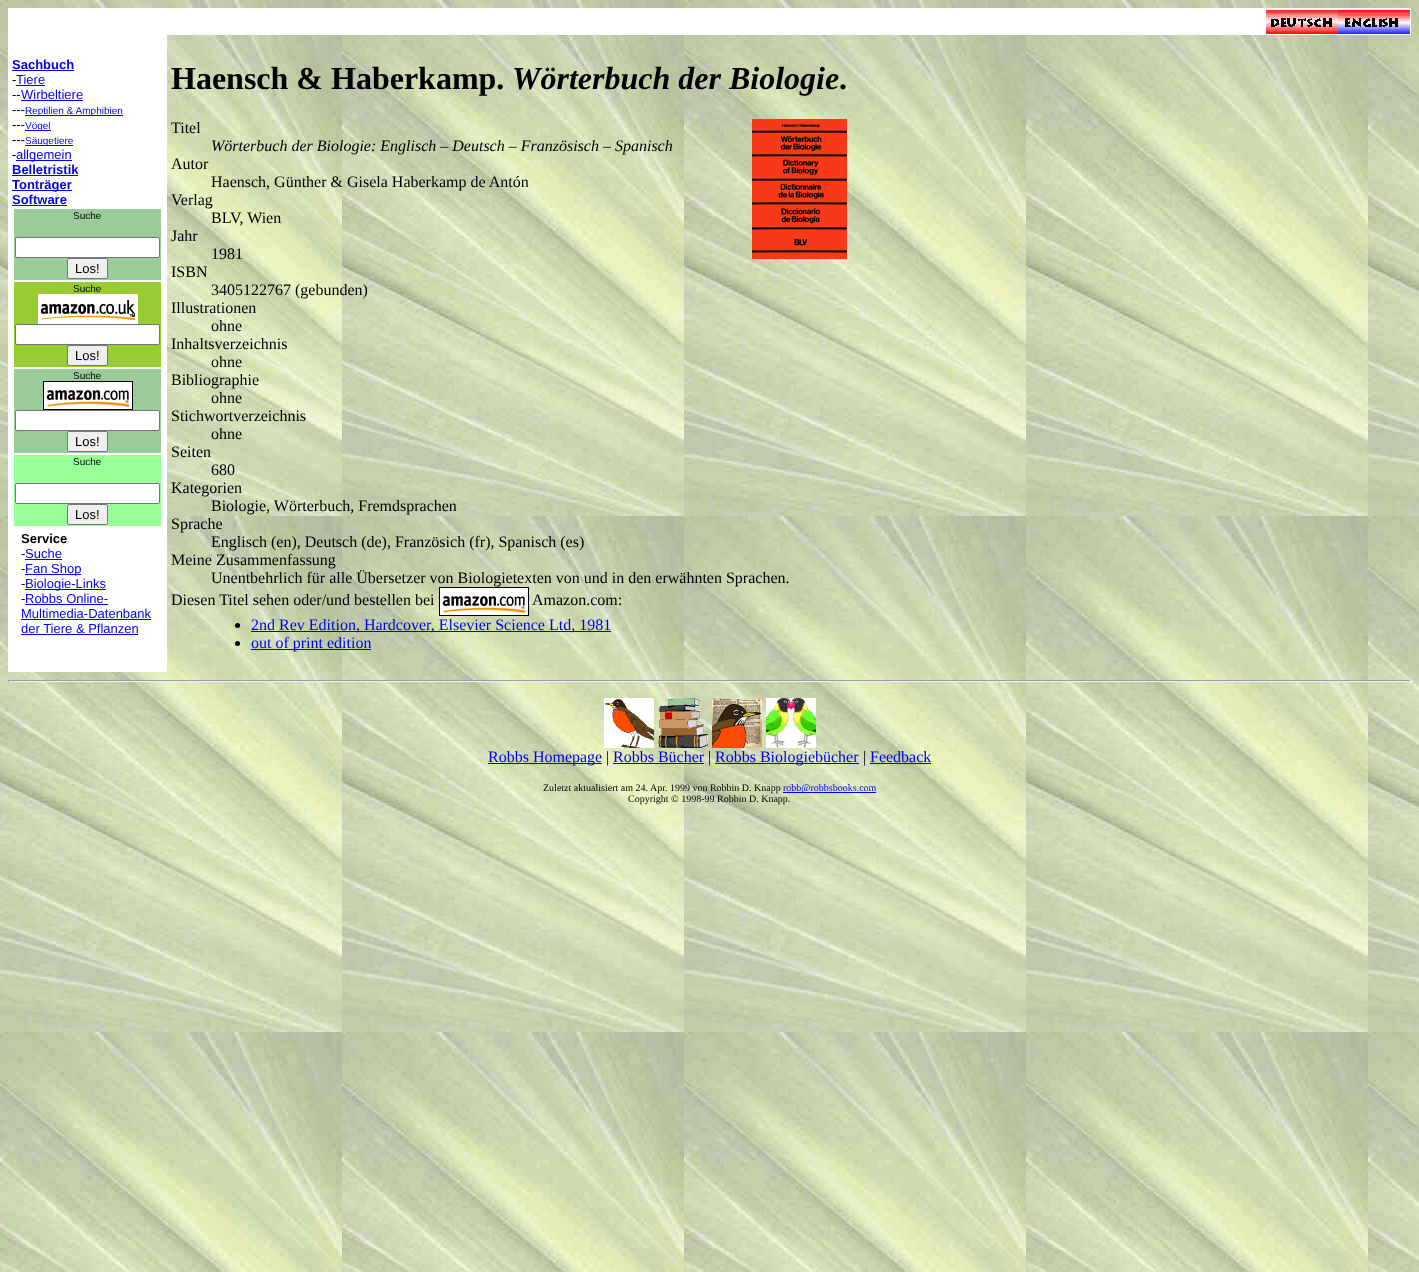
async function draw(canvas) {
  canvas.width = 1419
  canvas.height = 1272
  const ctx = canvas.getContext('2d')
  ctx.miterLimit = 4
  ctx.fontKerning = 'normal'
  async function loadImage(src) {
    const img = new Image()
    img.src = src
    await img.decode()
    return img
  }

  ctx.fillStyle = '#fff'
  ctx.fillRect(0, 0, 1419, 1272)
  ctx.drawImage(await loadImage('image0.png'), 0, 0, 1419, 1272)
  ctx.fillRect(8, 8, 1403, 27)
  ctx.drawImage(await loadImage('image1.png'), 1266, 10, 72, 24)
  ctx.drawImage(await loadImage('image2.png'), 1338, 10, 72, 24)
  ctx.fillRect(8, 35, 159, 637)
  ctx.font = 'bold 13px Liberation Sans'
  ctx.fillStyle = '#00e'
  ctx.fillText('Sachbuch', 12, 69)
  ctx.fillRect(12, 70, 62, 1)
  ctx.font = '13px Liberation Sans'
  ctx.fillStyle = '#000'
  ctx.fillText('-', 12, 84)
  ctx.fillStyle = '#00e'
  ctx.fillRect(16, 85, 29, 1)
  ctx.fillText('Tiere', 16, 84)
  ctx.fillStyle = '#000'
  ctx.fillText('--', 12, 99)
  ctx.fillStyle = '#00e'
  ctx.fillRect(21, 100, 62, 1)
  ctx.fillText('Wirbeltiere', 21, 99)
  ctx.fillStyle = '#000'
  ctx.fillText('---', 12, 114)
  ctx.fillStyle = '#00e'
  ctx.fillRect(25, 115, 98, 1)
  ctx.font = '10px Liberation Sans'
  ctx.fillText('Reptilien & Amphibien', 25, 114)
  ctx.font = '13px Liberation Sans'
  ctx.fillStyle = '#000'
  ctx.fillText('---', 12, 129)
  ctx.fillStyle = '#00e'
  ctx.fillRect(25, 130, 26, 1)
  ctx.font = '10px Liberation Sans'
  ctx.fillText('Vögel', 25, 129)
  ctx.font = '13px Liberation Sans'
  ctx.fillStyle = '#000'
  ctx.fillText('---', 12, 144)
  ctx.fillStyle = '#00e'
  ctx.fillRect(25, 145, 48, 1)
  ctx.font = '10px Liberation Sans'
  ctx.fillText('Säugetiere', 25, 144)
  ctx.font = '13px Liberation Sans'
  ctx.fillStyle = '#000'
  ctx.fillText('-', 12, 159)
  ctx.fillStyle = '#00e'
  ctx.fillRect(16, 160, 56, 1)
  ctx.fillText('allgemein', 16, 159)
  ctx.font = 'bold 13px Liberation Sans'
  ctx.fillText('Belletristik', 12, 174)
  ctx.fillRect(12, 175, 66, 1)
  ctx.fillRect(12, 190, 60, 1)
  ctx.fillText('Tonträger', 12, 189)
  ctx.fillText('Software', 12, 204)
  ctx.fillRect(12, 205, 55, 1)
  ctx.fillStyle = '#9c9'
  ctx.fillRect(14, 209, 147, 71)
  ctx.font = '10px Liberation Sans'
  ctx.fillStyle = '#000'
  ctx.fillText('Suche', 73, 219)
  ctx.fillStyle = '#fff'
  ctx.beginPath()
  ctx.roundRect(15.5, 237.5, 144, 20, 1.5)
  ctx.fill()
  ctx.strokeStyle = '#767676'
  ctx.stroke()
  ctx.fillStyle = '#efefef'
  ctx.beginPath()
  ctx.roundRect(67.5, 258.5, 40, 20, 1.5)
  ctx.fill()
  ctx.stroke()
  ctx.font = '13px Liberation Sans'
  ctx.fillStyle = '#000'
  ctx.fillText('Los!', 75, 273)
  ctx.fillStyle = '#9c3'
  ctx.fillRect(14, 282, 147, 85)
  ctx.font = '10px Liberation Sans'
  ctx.fillStyle = '#000'
  ctx.fillText('Suche', 73, 292)
  ctx.drawImage(await loadImage('image3.png'), 38, 294, 100, 30)
  ctx.fillStyle = '#fff'
  ctx.beginPath()
  ctx.roundRect(15.5, 324.5, 144, 20, 1.5)
  ctx.fill()
  ctx.stroke()
  ctx.fillStyle = '#efefef'
  ctx.beginPath()
  ctx.roundRect(67.5, 345.5, 40, 20, 1.5)
  ctx.fill()
  ctx.stroke()
  ctx.font = '13px Liberation Sans'
  ctx.fillStyle = '#000'
  ctx.fillText('Los!', 75, 360)
  ctx.fillStyle = '#9c9'
  ctx.fillRect(14, 369, 147, 84)
  ctx.font = '10px Liberation Sans'
  ctx.fillStyle = '#000'
  ctx.fillText('Suche', 73, 379)
  ctx.drawImage(await loadImage('image4.png'), 43, 381, 90, 29)
  ctx.fillStyle = '#fff'
  ctx.beginPath()
  ctx.roundRect(15.5, 410.5, 144, 20, 1.5)
  ctx.fill()
  ctx.stroke()
  ctx.fillStyle = '#efefef'
  ctx.beginPath()
  ctx.roundRect(67.5, 431.5, 40, 20, 1.5)
  ctx.fill()
  ctx.stroke()
  ctx.font = '13px Liberation Sans'
  ctx.fillStyle = '#000'
  ctx.fillText('Los!', 75, 446)
  ctx.fillStyle = '#9f9'
  ctx.fillRect(14, 455, 147, 71)
  ctx.font = '10px Liberation Sans'
  ctx.fillStyle = '#000'
  ctx.fillText('Suche', 73, 465)
  ctx.fillStyle = '#fff'
  ctx.beginPath()
  ctx.roundRect(15.5, 483.5, 144, 20, 1.5)
  ctx.fill()
  ctx.stroke()
  ctx.fillStyle = '#efefef'
  ctx.beginPath()
  ctx.roundRect(67.5, 504.5, 40, 20, 1.5)
  ctx.fill()
  ctx.stroke()
  ctx.font = '13px Liberation Sans'
  ctx.fillStyle = '#000'
  ctx.fillText('Los!', 75, 519)
  ctx.font = 'bold 13px Liberation Sans'
  ctx.fillText('Service', 21, 543)
  ctx.font = '13px Liberation Sans'
  ctx.fillText('-', 21, 558)
  ctx.fillStyle = '#00e'
  ctx.fillRect(25, 559, 37, 1)
  ctx.fillText('Suche', 25, 558)
  ctx.fillStyle = '#000'
  ctx.fillText('-', 21, 573)
  ctx.fillStyle = '#00e'
  ctx.fillRect(25, 574, 56, 1)
  ctx.fillText('Fan Shop', 25, 573)
  ctx.fillStyle = '#000'
  ctx.fillText('-', 21, 588)
  ctx.fillStyle = '#00e'
  ctx.fillRect(25, 589, 81, 1)
  ctx.fillText('Biologie-Links', 25, 588)
  ctx.fillStyle = '#000'
  ctx.fillText('-', 21, 603)
  ctx.fillStyle = '#00e'
  ctx.fillRect(25, 604, 83, 1)
  ctx.fillText('Robbs Online-', 25, 603)
  ctx.fillText('Multimedia-Datenbank', 21, 618)
  ctx.fillRect(21, 619, 130, 1)
  ctx.fillText('der Tiere & Pflanzen', 21, 633)
  ctx.fillRect(21, 634, 117, 1)
  ctx.font = 'bold 32px Liberation Serif'
  ctx.fillStyle = '#000'
  ctx.fillText('Haensch & Haberkamp.', 171, 89)
  ctx.font = 'italic bold 32px Liberation Serif'
  ctx.fillText('Wörterbuch der Biologie', 512, 89)
  ctx.font = 'bold 32px Liberation Serif'
  ctx.fillText('.', 839, 89)
  ctx.font = '16px Liberation Serif'
  ctx.fillText('Titel', 171, 133)
  ctx.drawImage(await loadImage('image5.png'), 752, 119, 95, 140)
  ctx.font = 'italic 16px Liberation Serif'
  ctx.fillText('Wörterbuch der Biologie: Englisch – Deutsch – Französisch – Spanisch', 211, 151)
  ctx.font = '16px Liberation Serif'
  ctx.fillText('Autor', 171, 169)
  ctx.fillText('Haensch, Günther & Gisela Haberkamp de Antón', 211, 187)
  ctx.fillText('Verlag', 171, 205)
  ctx.fillText('BLV, Wien', 211, 223)
  ctx.fillText('Jahr', 171, 241)
  ctx.fillText('1981', 211, 259)
  ctx.fillText('ISBN', 171, 277)
  ctx.fillText('3405122767 (gebunden)', 211, 295)
  ctx.fillText('Illustrationen', 171, 313)
  ctx.fillText('ohne', 211, 331)
  ctx.fillText('Inhaltsverzeichnis', 171, 349)
  ctx.fillText('ohne', 211, 367)
  ctx.fillText('Bibliographie', 171, 385)
  ctx.fillText('ohne', 211, 403)
  ctx.fillText('Stichwortverzeichnis', 171, 421)
  ctx.fillText('ohne', 211, 439)
  ctx.fillText('Seiten', 171, 457)
  ctx.fillText('680', 211, 475)
  ctx.fillText('Kategorien', 171, 493)
  ctx.fillText('Biologie, Wörterbuch, Fremdsprachen', 211, 511)
  ctx.fillText('Sprache', 171, 529)
  ctx.fillText('Englisch (en), Deutsch (de), Französich (fr), Spanisch (es)', 211, 547)
  ctx.fillText('Meine Zusammenfassung', 171, 565)
  ctx.fillText('Unentbehrlich für alle Übersetzer von Biologietexten von und in den erwähnten Sprachen.', 211, 583)
  ctx.fillText('Diesen Titel sehen oder/und bestellen bei', 171, 605)
  ctx.drawImage(await loadImage('image4.png'), 439, 587, 90, 29)
  ctx.fillText('Amazon.com:', 532, 605)
  ctx.beginPath()
  ctx.arc(237.5, 625.5, 2.5, 0, 2 * Math.PI)
  ctx.fill()
  ctx.fillStyle = '#00e'
  ctx.fillRect(251, 631, 360, 1)
  ctx.fillText('2nd Rev Edition, Hardcover, Elsevier Science Ltd, 1981', 251, 630)
  ctx.fillStyle = '#000'
  ctx.beginPath()
  ctx.arc(237.5, 643.5, 2.5, 0, 2 * Math.PI)
  ctx.fill()
  ctx.fillStyle = '#00e'
  ctx.fillRect(251, 649, 120, 1)
  ctx.fillText('out of print edition', 251, 648)
  ctx.fillStyle = '#9f9f9f'
  ctx.fillRect(8, 680, 1403, 1)
  ctx.fillStyle = '#eee'
  ctx.fillRect(1410, 680, 1, 2)
  ctx.fillRect(8, 681, 1403, 1)
  ctx.fillStyle = '#9f9f9f'
  ctx.fillRect(8, 680, 1, 2)
  ctx.drawImage(await loadImage('image6.png'), 604, 698, 50, 50)
  ctx.drawImage(await loadImage('image7.png'), 658, 698, 50, 50)
  ctx.drawImage(await loadImage('image8.png'), 712, 698, 50, 50)
  ctx.drawImage(await loadImage('image9.png'), 766, 698, 50, 50)
  ctx.fillStyle = '#00e'
  ctx.fillRect(488, 763, 114, 1)
  ctx.fillText('Robbs Homepage', 488, 762)
  ctx.fillStyle = '#000'
  ctx.fillText('|', 606, 762)
  ctx.fillStyle = '#00e'
  ctx.fillText('Robbs Bücher', 613, 762)
  ctx.fillRect(613, 763, 91, 1)
  ctx.fillStyle = '#000'
  ctx.fillText('|', 708, 762)
  ctx.fillStyle = '#00e'
  ctx.fillRect(715, 763, 144, 1)
  ctx.fillText('Robbs Biologiebücher', 715, 762)
  ctx.fillStyle = '#000'
  ctx.fillText('|', 863, 762)
  ctx.fillStyle = '#00e'
  ctx.fillText('Feedback', 870, 762)
  ctx.fillRect(870, 763, 61, 1)
  ctx.font = '10px Liberation Serif'
  ctx.fillStyle = '#000'
  ctx.fillText('Zuletzt aktualisiert am 24. Apr. 1999 von Robbin D. Knapp', 543, 791)
  ctx.fillStyle = '#00e'
  ctx.fillRect(783, 792, 93, 1)
  ctx.fillText('robb@robbsbooks.com', 783, 791)
  ctx.fillStyle = '#000'
  ctx.fillText('Copyright © 1998-99 Robbin D. Knapp.', 628, 802)
}

draw(document.querySelector('canvas'))
